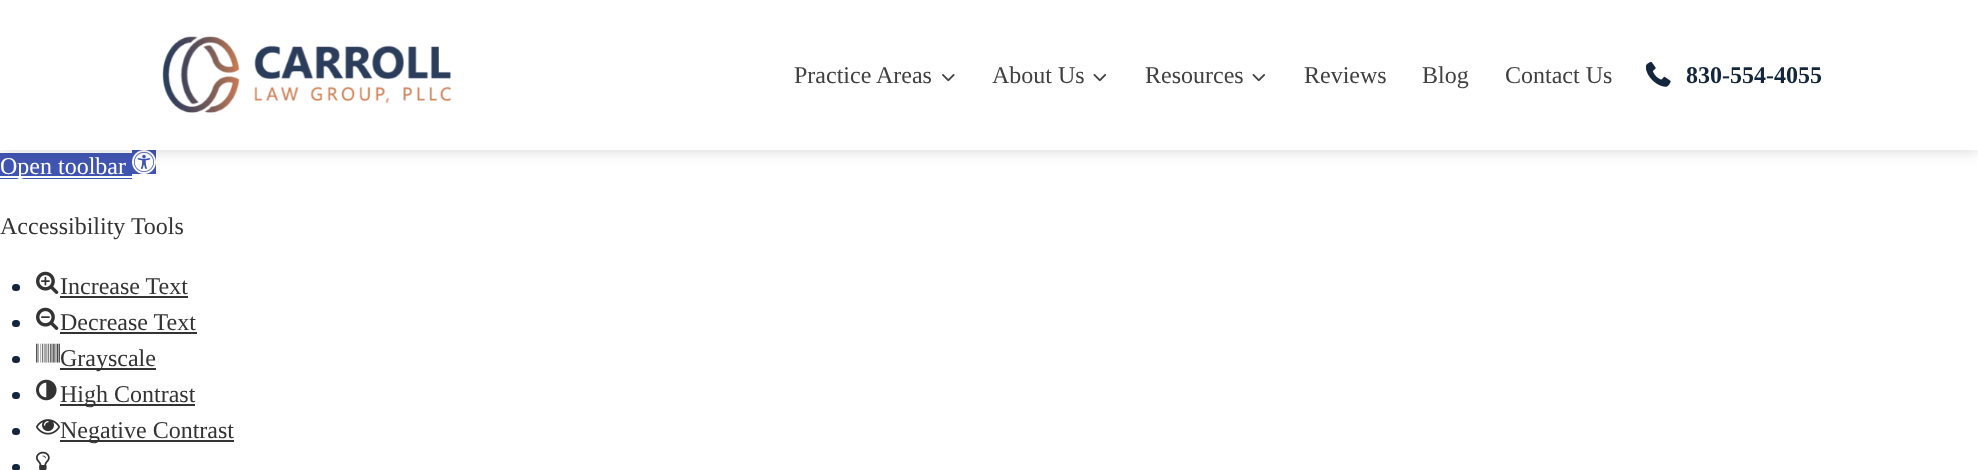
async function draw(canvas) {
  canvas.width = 1978
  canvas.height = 470
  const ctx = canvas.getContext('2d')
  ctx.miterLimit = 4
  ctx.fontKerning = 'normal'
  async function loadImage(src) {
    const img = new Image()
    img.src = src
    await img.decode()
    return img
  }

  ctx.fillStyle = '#fff'
  ctx.fillRect(0, 0, 1978, 470)
  ctx.fillStyle = '#4054b2'
  ctx.fillRect(0, 153, 132, 26)
  ctx.fillRect(132, 150, 24, 24)
  ctx.drawImage(await loadImage('image4.png'), 132, 150, 24, 24)
  ctx.fillStyle = '#22222233'
  ctx.filter = 'blur(7.5px)'
  ctx.beginPath()
  ctx.rect(0, 0, 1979, 150)
  ctx.fill()
  ctx.filter = 'none'
  ctx.fillStyle = '#fff'
  ctx.fillRect(0, 0, 1978, 150)
  ctx.drawImage(await loadImage('image0.png'), 162, 36, 290, 77)
  ctx.font = '24px Liberation Serif'
  ctx.fillStyle = '#404040'
  ctx.fillText('Practice Areas', 794, 83)
  ctx.drawImage(await loadImage('image1.png'), 942, 74, 13, 8)
  ctx.fillText('About Us', 992, 83)
  ctx.drawImage(await loadImage('image2.png'), 1093, 74, 13, 8)
  ctx.fillText('Resources', 1145, 83)
  ctx.drawImage(await loadImage('image2.png'), 1252, 74, 13, 8)
  ctx.fillText('Reviews', 1304, 83)
  ctx.fillText('Blog', 1422, 83)
  ctx.fillText('Contact Us', 1505, 83)
  ctx.drawImage(await loadImage('image3.png'), 1646, 62, 25, 25)
  ctx.font = 'bold 24px Liberation Serif'
  ctx.fillStyle = '#14253e'
  ctx.fillText('830-554-4055', 1686, 83)
  ctx.fillStyle = '#fff'
  ctx.fillRect(0, 176, 132, 2)
  ctx.font = '24px Liberation Serif'
  ctx.fillText('Open toolbar', 0, 174)
  ctx.fillStyle = '#333'
  ctx.fillText('Accessibility Tools', 0, 234)
  ctx.fillStyle = '#14253e'
  ctx.beginPath()
  ctx.roundRect(12, 284, 8, 7, 3.5)
  ctx.fill()
  ctx.drawImage(await loadImage('image5.png'), 36, 271, 23, 23)
  ctx.fillStyle = '#333'
  ctx.fillText('Increase Text', 60, 294)
  ctx.fillRect(60, 296, 128, 2)
  ctx.fillStyle = '#14253e'
  ctx.beginPath()
  ctx.roundRect(12, 320, 8, 7, 3.5)
  ctx.fill()
  ctx.drawImage(await loadImage('image6.png'), 36, 307, 23, 23)
  ctx.fillStyle = '#333'
  ctx.fillText('Decrease Text', 60, 330)
  ctx.fillRect(60, 332, 137, 2)
  ctx.fillStyle = '#14253e'
  ctx.beginPath()
  ctx.roundRect(12, 356, 8, 7, 3.5)
  ctx.fill()
  ctx.drawImage(await loadImage('image7.png'), 36, 343, 24, 20)
  ctx.fillStyle = '#333'
  ctx.fillRect(60, 368, 96, 2)
  ctx.fillText('Grayscale', 60, 366)
  ctx.fillStyle = '#14253e'
  ctx.beginPath()
  ctx.roundRect(12, 392, 8, 7, 3.5)
  ctx.fill()
  ctx.drawImage(await loadImage('image8.png'), 36, 379, 21, 22)
  ctx.fillStyle = '#333'
  ctx.fillRect(60, 404, 135, 2)
  ctx.fillText('High Contrast', 60, 402)
  ctx.fillStyle = '#14253e'
  ctx.beginPath()
  ctx.roundRect(12, 428, 8, 7, 3.5)
  ctx.fill()
  ctx.drawImage(await loadImage('image9.png'), 36, 419, 24, 16)
  ctx.fillStyle = '#333'
  ctx.fillRect(60, 440, 174, 2)
  ctx.fillText('Negative Contrast', 60, 438)
  ctx.fillStyle = '#14253e'
  ctx.beginPath()
  ctx.roundRect(12, 464, 8, 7, 3.5)
  ctx.fill()
  ctx.drawImage(await loadImage('image10.png'), 36, 451, 14, 19)
}

draw(document.querySelector('canvas'))
